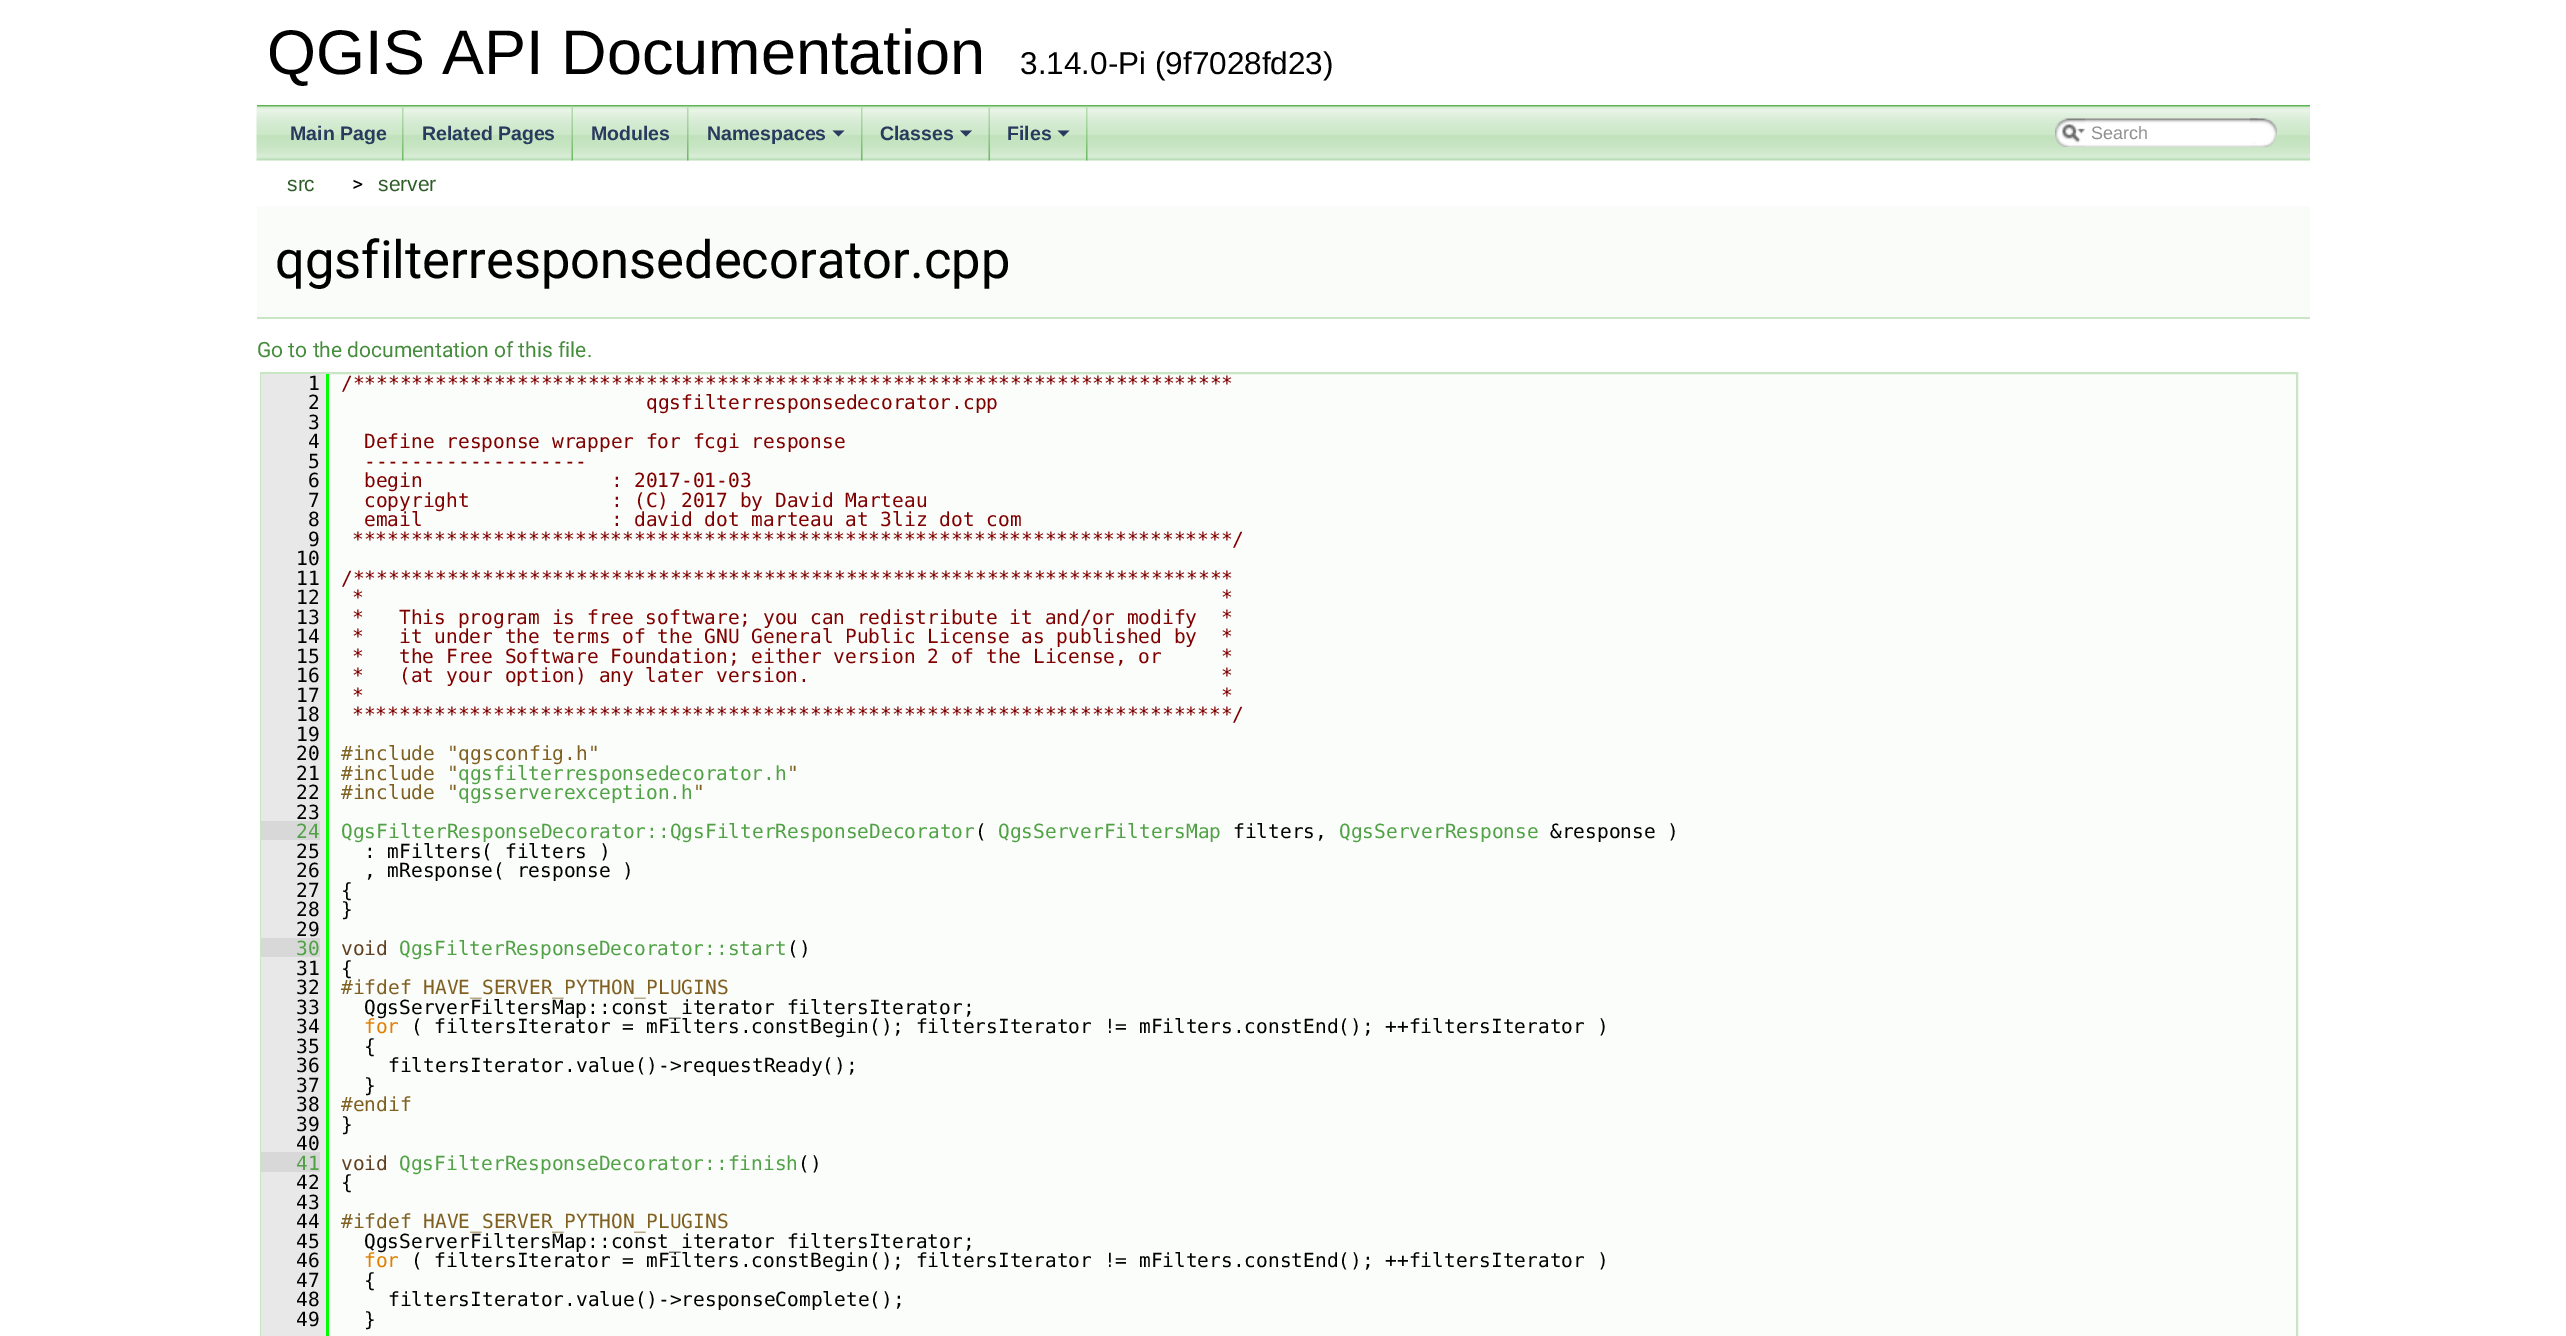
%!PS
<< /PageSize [2566 1336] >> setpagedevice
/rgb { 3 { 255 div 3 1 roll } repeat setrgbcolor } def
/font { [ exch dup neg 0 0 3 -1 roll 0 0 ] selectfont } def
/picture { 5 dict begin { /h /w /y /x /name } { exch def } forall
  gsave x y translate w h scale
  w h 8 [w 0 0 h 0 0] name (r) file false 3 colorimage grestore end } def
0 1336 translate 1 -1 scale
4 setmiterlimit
255 255 255 rgb
0 0 2566 1336 rectfill
95 180 83 rgb
257 105 2053 2 rectfill
(img/1.rgb) 256 106 2054 55 picture
(img/2.rgb) 402 106 2 55 picture
(img/3.rgb) 571 106 2 55 picture
(img/2.rgb) 687 106 2 55 picture
(img/2.rgb) 861 106 2 55 picture
40 58 93 rgb
832.5 130.5 moveto 844.5 130.5 lineto 838.5 136.5 lineto closepath fill
(img/3.rgb) 988 106 2 55 picture
960 130.5 moveto 972 130.5 lineto 966 136.5 lineto closepath fill
(img/2.rgb) 1086 106 2 55 picture
1057.5 130.5 moveto 1069.5 130.5 lineto 1063.5 136.5 lineto closepath fill
(img/4.rgb) 2055 118 30 29 picture
(img/5.rgb) 2062 124 23 19 picture
(img/6.rgb) 2085 118 173 29 picture
(img/7.rgb) 2250 118 27 29 picture
[
  [257 206 2053 111 249 252 249]
  [257 317 2053 2 200 229 196]
  [329 374 1967 962 251 253 251]
] { aload pop rgb rectfill } forall
200 229 196 rgb
2 setlinewidth
261 373 2036 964 rectstroke
[
  [261 374 65 447 232 232 232]
  [326 374 3 957 0 255 0]
  [320 821 6 19 232 232 232]
  [261 821 59 19 216 216 216]
  [261 840 65 98 232 232 232]
  [320 938 6 19 232 232 232]
  [261 938 59 19 216 216 216]
  [261 957 65 195 232 232 232]
  [320 1152 6 20 232 232 232]
  [261 1152 59 20 216 216 216]
  [261 1172 65 156 232 232 232]
  [261 1328 68 8 232 232 232]
  [326 1328 3 8 0 255 0]
] { aload pop rgb rectfill } forall
/LiberationSans-Regular 63 font
0 0 0 rgb
267 74 moveto (QGIS API Documentation) show
/LiberationSans-Regular 31.5 font
1020 74 moveto (3.14.0-Pi \(9f7028fd23\)) show
/LiberationSans-Bold 19.5 font
40 58 93 rgb
[
  [(Main Page) 290 140]
  [(Related Pages) 422 140]
  [(Modules) 591 140]
  [(Namespaces) 707 140]
  [(Classes) 880 140]
  [(Files) 1007 140]
] { aload pop moveto show } forall
/LiberationSans-Regular 18 font
144 144 144 rgb
2091 139 moveto (Search) show
/LiberationSans-Regular 21 font
46 93 40 rgb
287 191 moveto (src) show
/Roboto-Regular 21 font
0 0 0 rgb
352 191 moveto (>) show
/LiberationSans-Regular 21 font
46 93 40 rgb
378 191 moveto (server) show
/Roboto-Regular 52.5 font
0 0 0 rgb
275 278 moveto (qgsfilterresponsedecorator.cpp) show
/Roboto-Regular 21 font
70 140 61 rgb
257 357 moveto (Go to the documentation of this file.) show
/DejaVuSansMono-Regular 19.5 font
0 0 0 rgb
308 390 moveto (1) show
128 0 0 rgb
341 390 moveto (/***************************************************************************) show
0 0 0 rgb
308 409 moveto (2) show
128 0 0 rgb
646 409 moveto (qgsfilterresponsedecorator.cpp) show
0 0 0 rgb
308 429 moveto (3) show
308 448 moveto (4) show
128 0 0 rgb
364 448 moveto (Define response wrapper for fcgi response) show
0 0 0 rgb
308 468 moveto (5) show
128 0 0 rgb
364 468 moveto (-------------------) show
0 0 0 rgb
308 487 moveto (6) show
128 0 0 rgb
364 487 moveto (begin                : 2017-01-03) show
0 0 0 rgb
308 507 moveto (7) show
128 0 0 rgb
364 507 moveto (copyright            : \(C\) 2017 by David Marteau) show
0 0 0 rgb
308 526 moveto (8) show
128 0 0 rgb
364 526 moveto (email                : david dot marteau at 3liz dot com) show
0 0 0 rgb
308 546 moveto (9) show
128 0 0 rgb
352 546 moveto (***************************************************************************/) show
0 0 0 rgb
296 565 moveto (10) show
296 585 moveto (11) show
128 0 0 rgb
341 585 moveto (/***************************************************************************) show
0 0 0 rgb
296 604 moveto (12) show
128 0 0 rgb
352 604 moveto (*                                                                         *) show
0 0 0 rgb
296 624 moveto (13) show
128 0 0 rgb
352 624 moveto (*   This program is free software; you can redistribute it and/or modify  *) show
0 0 0 rgb
296 643 moveto (14) show
128 0 0 rgb
352 643 moveto (*   it under the terms of the GNU General Public License as published by  *) show
0 0 0 rgb
296 663 moveto (15) show
128 0 0 rgb
352 663 moveto (*   the Free Software Foundation; either version 2 of the License, or     *) show
0 0 0 rgb
296 682 moveto (16) show
128 0 0 rgb
352 682 moveto (*   \(at your option\) any later version.                                   *) show
0 0 0 rgb
296 702 moveto (17) show
128 0 0 rgb
352 702 moveto (*                                                                         *) show
0 0 0 rgb
296 721 moveto (18) show
128 0 0 rgb
352 721 moveto (***************************************************************************/) show
0 0 0 rgb
296 741 moveto (19) show
296 760 moveto (20) show
128 96 32 rgb
341 760 moveto (#include "qgsconfig.h") show
0 0 0 rgb
296 780 moveto (21) show
128 96 32 rgb
341 780 moveto (#include ") show
81 162 70 rgb
458 780 moveto (qgsfilterresponsedecorator.h) show
128 96 32 rgb
787 780 moveto (") show
0 0 0 rgb
296 799 moveto (22) show
128 96 32 rgb
341 799 moveto (#include ") show
81 162 70 rgb
458 799 moveto (qgsserverexception.h) show
128 96 32 rgb
693 799 moveto (") show
0 0 0 rgb
296 819 moveto (23) show
81 162 70 rgb
296 838 moveto (24) show
341 838 moveto (QgsFilterResponseDecorator::QgsFilterResponseDecorator) show
0 0 0 rgb
975 838 moveto (\() show
81 162 70 rgb
998 838 moveto (QgsServerFiltersMap) show
0 0 0 rgb
1233 838 moveto (filters,) show
81 162 70 rgb
1339 838 moveto (QgsServerResponse) show
0 0 0 rgb
[
  [(&response \)) 1550 838]
  [(25) 296 858]
  [(: mFilters\( filters \)) 364 858]
  [(26) 296 877]
  [(, mResponse\( response \)) 364 877]
  [(27) 296 897]
  [({) 341 897]
  [(28) 296 916]
  [(}) 341 916]
  [(29) 296 936]
] { aload pop moveto show } forall
81 162 70 rgb
296 955 moveto (30) show
96 64 32 rgb
341 955 moveto (void) show
81 162 70 rgb
399 955 moveto (QgsFilterResponseDecorator::start) show
0 0 0 rgb
[
  [(\(\)) 787 955]
  [(31) 296 975]
  [({) 341 975]
  [(32) 296 994]
] { aload pop moveto show } forall
128 96 32 rgb
341 994 moveto (#ifdef HAVE_SERVER_PYTHON_PLUGINS) show
0 0 0 rgb
[
  [(33) 296 1014]
  [(QgsServerFiltersMap::const_iterator filtersIterator;) 364 1014]
  [(34) 296 1033]
] { aload pop moveto show } forall
224 128 0 rgb
364 1033 moveto (for) show
0 0 0 rgb
[
  [(\( filtersIterator = mFilters.constBegin\(\); filtersIterator != mFilters.constEnd\(\); ++filtersIterator \)) 411 1033]
  [(35) 296 1053]
  [({) 364 1053]
  [(36) 296 1072]
  [(filtersIterator.value\(\)->requestReady\(\);) 388 1072]
  [(37) 296 1092]
  [(}) 364 1092]
  [(38) 296 1111]
] { aload pop moveto show } forall
128 96 32 rgb
341 1111 moveto (#endif) show
0 0 0 rgb
[
  [(39) 296 1131]
  [(}) 341 1131]
  [(40) 296 1150]
] { aload pop moveto show } forall
81 162 70 rgb
296 1170 moveto (41) show
96 64 32 rgb
341 1170 moveto (void) show
81 162 70 rgb
399 1170 moveto (QgsFilterResponseDecorator::finish) show
0 0 0 rgb
[
  [(\(\)) 798 1170]
  [(42) 296 1189]
  [({) 341 1189]
  [(43) 296 1209]
  [(44) 296 1228]
] { aload pop moveto show } forall
128 96 32 rgb
341 1228 moveto (#ifdef HAVE_SERVER_PYTHON_PLUGINS) show
0 0 0 rgb
[
  [(45) 296 1248]
  [(QgsServerFiltersMap::const_iterator filtersIterator;) 364 1248]
  [(46) 296 1267]
] { aload pop moveto show } forall
224 128 0 rgb
364 1267 moveto (for) show
0 0 0 rgb
[
  [(\( filtersIterator = mFilters.constBegin\(\); filtersIterator != mFilters.constEnd\(\); ++filtersIterator \)) 411 1267]
  [(47) 296 1287]
  [({) 364 1287]
  [(48) 296 1306]
  [(filtersIterator.value\(\)->responseComplete\(\);) 388 1306]
  [(49) 296 1326]
  [(}) 364 1326]
] { aload pop moveto show } forall
showpage
